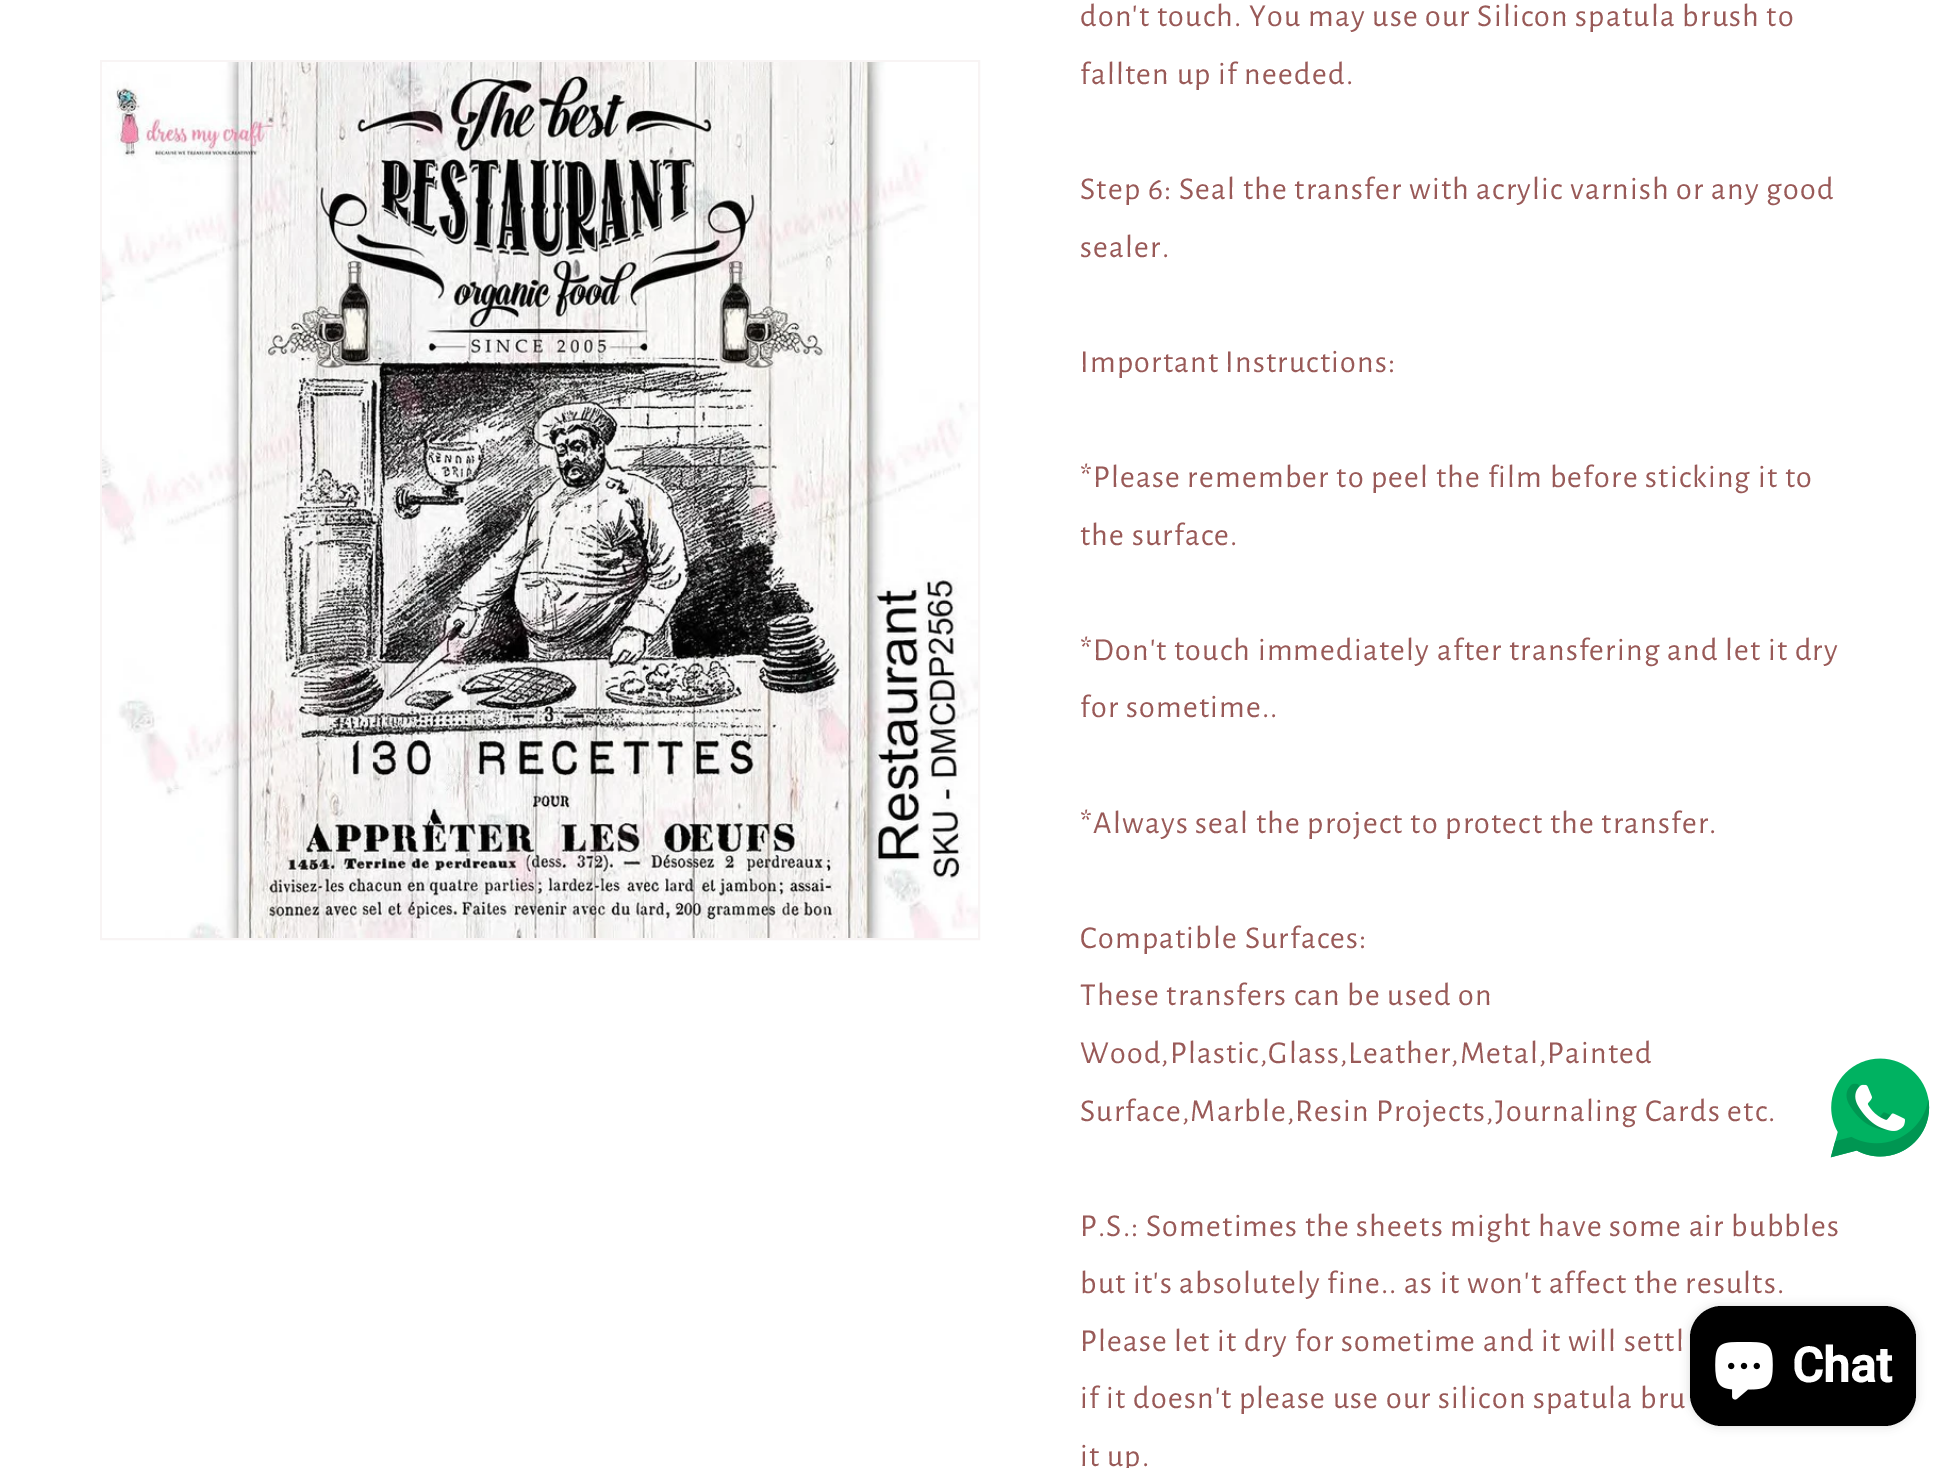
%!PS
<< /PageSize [1960 1468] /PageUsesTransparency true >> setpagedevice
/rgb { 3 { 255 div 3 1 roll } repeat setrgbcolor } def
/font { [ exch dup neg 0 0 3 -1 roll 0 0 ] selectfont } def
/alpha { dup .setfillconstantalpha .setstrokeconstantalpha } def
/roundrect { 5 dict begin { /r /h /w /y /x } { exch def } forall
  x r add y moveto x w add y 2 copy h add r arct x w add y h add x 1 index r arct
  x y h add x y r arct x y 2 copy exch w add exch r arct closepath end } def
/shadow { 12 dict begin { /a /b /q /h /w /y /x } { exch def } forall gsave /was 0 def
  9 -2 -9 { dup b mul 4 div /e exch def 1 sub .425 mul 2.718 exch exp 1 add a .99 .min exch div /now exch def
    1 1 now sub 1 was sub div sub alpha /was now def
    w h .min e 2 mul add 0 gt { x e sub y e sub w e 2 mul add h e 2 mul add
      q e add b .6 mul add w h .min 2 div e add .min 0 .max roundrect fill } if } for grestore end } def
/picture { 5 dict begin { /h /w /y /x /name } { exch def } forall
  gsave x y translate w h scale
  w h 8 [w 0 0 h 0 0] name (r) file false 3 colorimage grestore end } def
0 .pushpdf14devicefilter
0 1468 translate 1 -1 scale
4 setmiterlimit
255 255 255 rgb
0 0 1960 1468 rectfill
248 244 244 rgb
2 setlinewidth
101 61 878 878 rectstroke
(img/1.rgb) 102 62 876 876 picture
(img/2.rgb) 1830 1058 100 100 picture
0 0 0 rgb
1690 1306 226 120 32 5 0.15 shadow
1690 1306 226 120 32 roundrect fill
(img/3.rgb) 1715 1342 58 58 picture
/AlegreyaSans-Regular 32 font
153 90 88 rgb
1080 26 moveto 1.2 0 (don't touch. You may use our Silicon spatula brush to) ashow
1080 84 moveto 1.2 0 (fallten up if needed.) ashow
1080 199 moveto 1.2 0 (Step 6: Seal the transfer with acrylic varnish or any good) ashow
1080 257 moveto 1.2 0 (sealer.) ashow
1080 372 moveto 1.2 0 (Important Instructions:) ashow
1080 487 moveto 1.2 0 (*Please remember to peel the film before sticking it to) ashow
1080 545 moveto 1.2 0 (the surface.) ashow
1080 660 moveto 1.2 0 (*Don't touch immediately after transfering and let it dry) ashow
1080 717 moveto 1.2 0 (for sometime..) ashow
1080 833 moveto 1.2 0 (*Always seal the project to protect the transfer.) ashow
1080 948 moveto 1.2 0 (Compatible Surfaces:) ashow
1080 1005 moveto 1.2 0 (These transfers can be used on) ashow
1080 1063 moveto 1.2 0 (Wood,Plastic,Glass,Leather,Metal,Painted) ashow
1080 1121 moveto 1.2 0 (Surface,Marble,Resin Projects,Journaling Cards etc.) ashow
1080 1236 moveto 1.2 0 (P.S.: Sometimes the sheets might have some air bubbles) ashow
1080 1293 moveto 1.2 0 (but it's absolutely fine.. as it won't affect the results.) ashow
1080 1351 moveto 1.2 0 (Please let it dry for sometime and it will settl) ashow
1080 1408 moveto 1.2 0 (if it doesn't please use our silicon spatula bru) ashow
1080 1466 moveto 1.2 0 (it up.) ashow
/Roboto-Bold 48 font
255 255 255 rgb
1792 1382 moveto (Chat) show
.poppdf14devicefilter showpage
